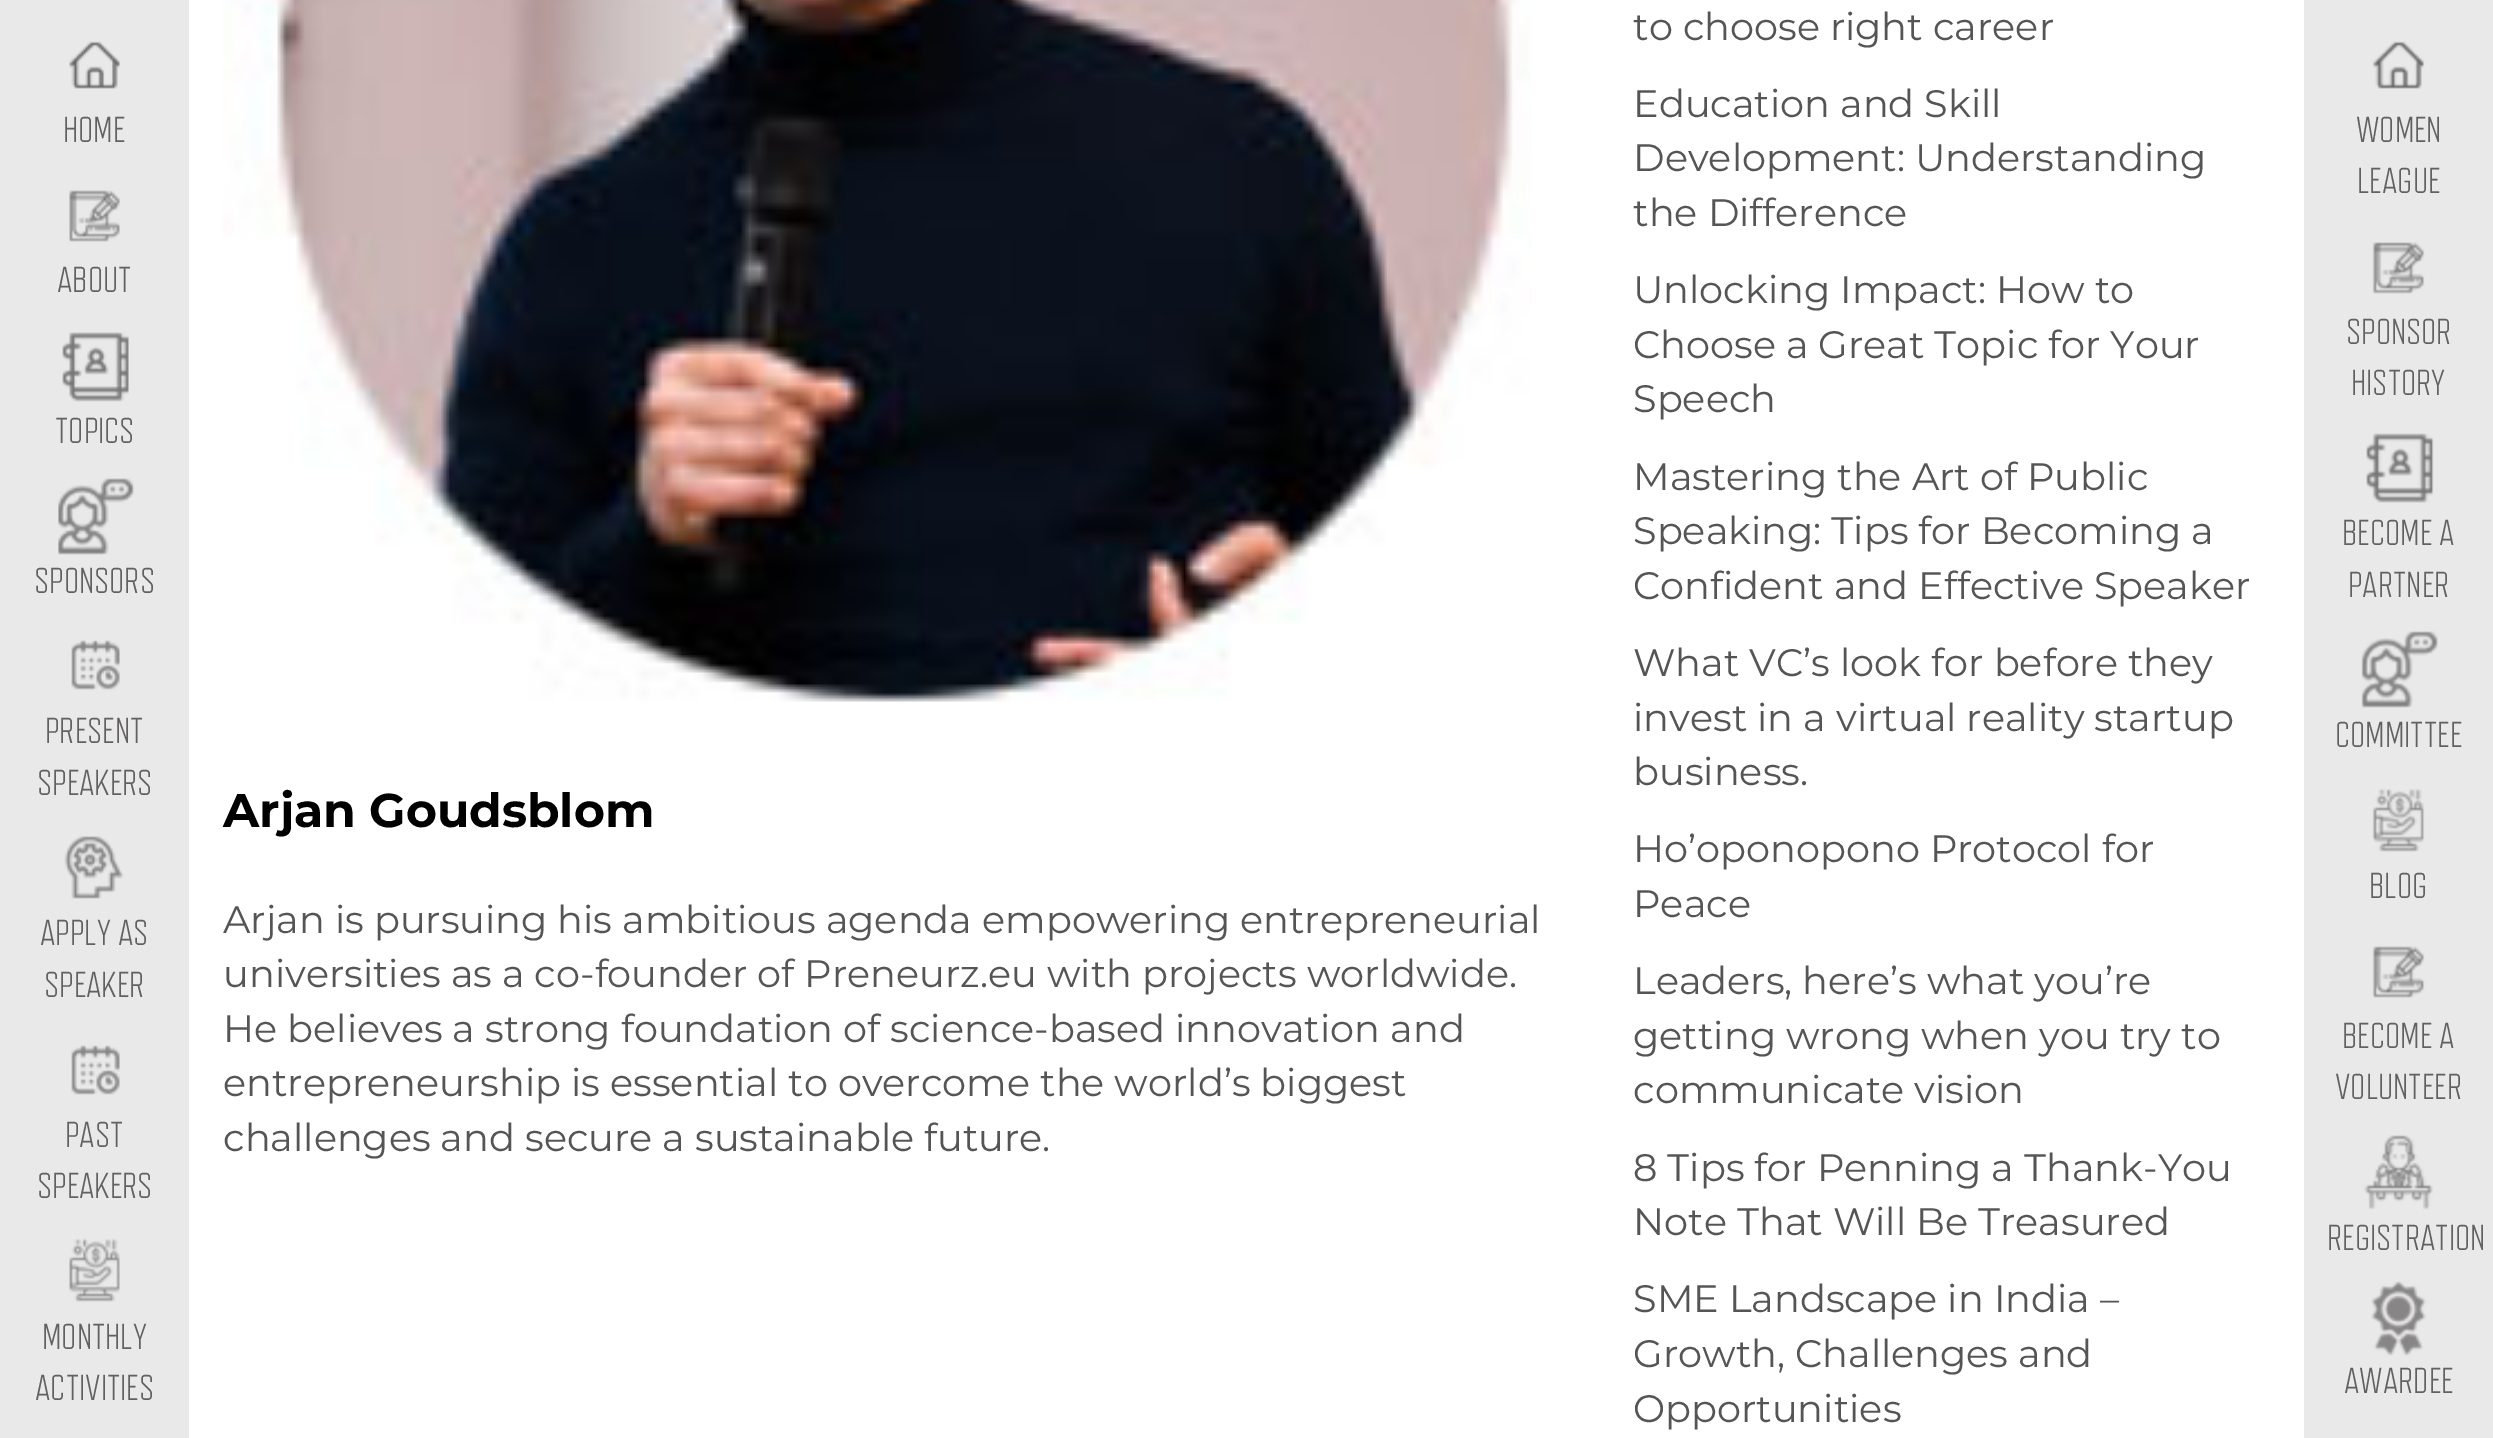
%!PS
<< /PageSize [2493 1438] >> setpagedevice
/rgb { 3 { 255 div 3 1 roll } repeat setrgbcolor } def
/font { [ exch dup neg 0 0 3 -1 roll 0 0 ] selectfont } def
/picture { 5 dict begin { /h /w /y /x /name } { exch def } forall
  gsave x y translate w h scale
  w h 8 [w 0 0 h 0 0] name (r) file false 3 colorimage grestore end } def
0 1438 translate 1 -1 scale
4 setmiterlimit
255 255 255 rgb
0 0 2493 1438 rectfill
233 233 233 rgb
0 0 189 1438 rectfill
(img/1.rgb) 69 41 51 48 picture
(img/2.rgb) 69 190 51 52 picture
(img/3.rgb) 62 332 67 70 picture
(img/4.rgb) 58 478 76 77 picture
(img/5.rgb) 71 640 49 50 picture
(img/6.rgb) 64 836 60 63 picture
(img/5.rgb) 71 1045 49 50 picture
(img/7.rgb) 69 1238 51 64 picture
(img/8.rgb) 223 0 1309 702 picture
2304 0 189 1438 rectfill
(img/9.rgb) 2372 41 53 48 picture
(img/10.rgb) 2372 242 53 52 picture
(img/11.rgb) 2366 433 68 70 picture
(img/12.rgb) 2361 631 77 77 picture
(img/13.rgb) 2372 788 53 64 picture
(img/14.rgb) 2372 946 53 52 picture
(img/15.rgb) 2364 1135 69 75 picture
(img/16.rgb) 2371 1281 55 75 picture
/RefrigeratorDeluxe-Light 36 font
98 96 96 rgb
[
  [(HOME) 63 142]
  [(ABOUT) 57 292]
  [(TOPICS) 55 443]
  [(SPONSORS) 34 593]
  [(PRESENT) 45 743]
  [(SPEAKERS) 37 795]
  [(APPLY AS) 40 945]
  [(SPEAKER) 44 997]
  [(PAST) 65 1147]
  [(SPEAKERS) 37 1198]
  [(MONTHLY) 42 1349]
  [(ACTIVITIES) 35 1400]
] { aload pop moveto show } forall
/Montserrat-Bold 47.25 font
0 0 0 rgb
223 827 moveto (Arjan Goudsblom) show
/Montserrat-Regular 38.25 font
85 85 85 rgb
[
  [(Arjan is pursuing his ambitious agenda empowering entrepreneurial) 223 933]
  [(universities as a co-founder of Preneurz.eu with projects worldwide.) 223 987]
  [(He believes a strong foundation of science-based innovation and) 223 1042]
  [(entrepreneurship is essential to overcome the world’s biggest) 223 1096]
  [(challenges and secure a sustainable future.) 223 1151]
  [(to choose right career) 1633 40]
  [(Education and Skill) 1633 117]
  [(Development: Understanding) 1633 171]
  [(the Difference) 1633 226]
  [(Unlocking Impact: How to) 1633 303]
  [(Choose a Great Topic for Your) 1633 358]
  [(Speech) 1633 412]
  [(Mastering the Art of Public) 1633 490]
  [(Speaking: Tips for Becoming a) 1633 544]
  [(Confident and Effective Speaker) 1633 599]
  [(What VC’s look for before they) 1633 676]
  [(invest in a virtual reality startup) 1633 731]
  [(business.) 1633 785]
  [(Ho’oponopono Protocol for) 1633 862]
  [(Peace) 1633 917]
  [(Leaders, here’s what you’re) 1633 994]
  [(getting wrong when you try to) 1633 1049]
  [(communicate vision) 1633 1103]
  [(8 Tips for Penning a Thank-You) 1633 1181]
  [(Note That Will Be Treasured) 1633 1235]
  [(SME Landscape in India –) 1633 1312]
  [(Growth, Challenges and) 1633 1367]
  [(Opportunities) 1633 1422]
] { aload pop moveto show } forall
/RefrigeratorDeluxe-Light 36 font
98 96 96 rgb
[
  [(WOMEN) 2356 142]
  [(LEAGUE) 2357 193]
  [(SPONSOR) 2346 344]
  [(HISTORY) 2351 395]
  [(BECOME A) 2342 545]
  [(PARTNER) 2348 597]
  [(COMMITTEE) 2335 747]
  [(BLOG) 2369 898]
  [(BECOME A) 2342 1048]
  [(VOLUNTEER) 2335 1099]
  [(REGISTRATION) 2327 1250]
  [(AWARDEE) 2344 1393]
] { aload pop moveto show } forall
showpage
